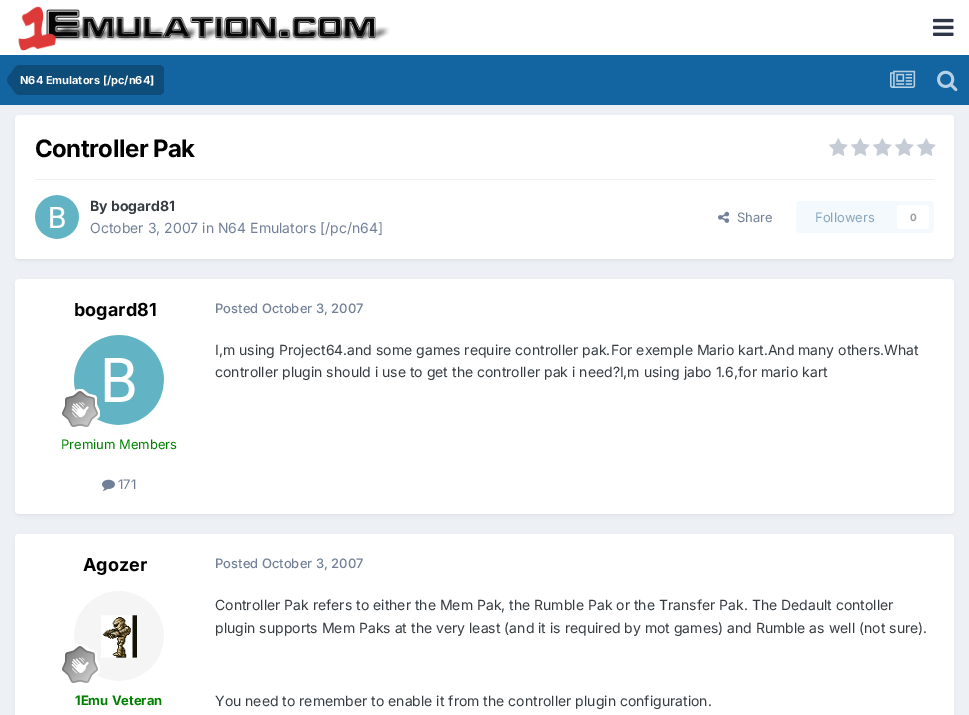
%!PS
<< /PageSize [969 715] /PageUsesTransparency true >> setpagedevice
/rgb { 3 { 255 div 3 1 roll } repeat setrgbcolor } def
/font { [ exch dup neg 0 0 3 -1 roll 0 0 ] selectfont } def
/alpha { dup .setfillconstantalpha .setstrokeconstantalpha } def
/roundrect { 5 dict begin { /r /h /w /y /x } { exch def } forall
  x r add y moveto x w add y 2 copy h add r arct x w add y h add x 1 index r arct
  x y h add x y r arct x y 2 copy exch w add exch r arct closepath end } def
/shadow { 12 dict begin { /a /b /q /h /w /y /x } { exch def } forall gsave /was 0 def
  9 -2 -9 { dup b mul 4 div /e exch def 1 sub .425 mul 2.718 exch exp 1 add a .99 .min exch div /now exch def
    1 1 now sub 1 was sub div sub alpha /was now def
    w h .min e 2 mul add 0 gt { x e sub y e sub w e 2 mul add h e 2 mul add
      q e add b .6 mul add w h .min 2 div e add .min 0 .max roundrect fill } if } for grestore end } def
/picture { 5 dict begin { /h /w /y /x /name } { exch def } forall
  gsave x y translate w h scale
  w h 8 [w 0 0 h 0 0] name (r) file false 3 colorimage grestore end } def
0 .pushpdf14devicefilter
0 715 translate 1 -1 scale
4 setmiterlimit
237 240 244 rgb
0 0 969 715 rectfill
255 255 255 rgb
0 0 969 55 rectfill
(img/1.rgb) 18 6 372 45 picture
(img/2.rgb) 933 18 21 18 picture
18 101 161 rgb
0 55 969 50 rectfill
14 76 121 rgb
20 65 moveto 159 65 lineto 162 65 164 67 164 70 curveto 164 90 lineto 164 93 162 95 159 95 curveto 20 95 lineto closepath fill
20 80 moveto 20 95 lineto 15.5 95 13.5 90.5 11 87 curveto 9.5 85 7 83 7 80 curveto closepath 20 80 moveto 7 80 lineto 7 77 9.5 75 11 73 curveto 13.5 69.5 15.5 65 20 65 curveto closepath fill
(img/3.rgb) 890 70 26 18 picture
(img/4.rgb) 937 70 21 22 picture
45 55 72 rgb
16 118 937 142 3 2 0.1 shadow
255 255 255 rgb
15 115 939 144 4 roundrect fill
(img/5.rgb) 829 138 19 18 picture
(img/5.rgb) 851 138 19 18 picture
(img/5.rgb) 873 138 19 18 picture
(img/5.rgb) 895 138 19 18 picture
(img/5.rgb) 917 138 19 18 picture
239 239 240 rgb
35 179 899 1 rectfill
(img/6.rgb) 35 195 44 44 picture
(img/7.rgb) 718 211 12 12 picture
244 249 253 rgb
796 201 138 32 4 roundrect fill
255 255 255 rgb
897 205 32 24 4 roundrect fill
45 55 72 rgb
16 282 937 233 3 2 0.1 shadow
255 255 255 rgb
15 279 939 235 4 roundrect fill
(img/8.rgb) 74 335 90 90 picture
(img/9.rgb) 62 389 38 38 picture
(img/10.rgb) 102 479 13 12 picture
45 55 72 rgb
16 537 937 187 3 2 0.1 shadow
255 255 255 rgb
15 534 939 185 4 roundrect fill
(img/11.rgb) 74 591 90 90 picture
(img/12.rgb) 62 644 38 39 picture
/Inter-Bold 11 font
20 84 moveto (N64 Emulators [/pc/n64]) show
/Inter-Bold 24 font
0 0 0 rgb
35 157 moveto -0.5 0 (Controller Pak) ashow
/Inter-Bold 14 font
53 60 65 rgb
90 211 moveto (By bogard81) show
/Inter-Regular 14 font
113 128 150 rgb
90 233 moveto (October 3, 2007 in N64 Emulators [/pc/n64]) show
/Inter-Regular 13 font
737 222 moveto (Share) show
135 166 188 rgb
815 222 moveto (Followers) show
/Inter-Bold 10 font
154 158 160 rgb
910 221 moveto (0) show
/Inter-Bold 18 font
0 0 0 rgb
74 316 moveto (bogard81) show
/Inter-Regular 13 font
0 128 0 rgb
61 449 moveto (Premium Members) show
113 128 150 rgb
118 489 moveto (171) show
/Inter-Medium 13 font
215 313 moveto (Posted October 3, 2007) show
/Inter-Regular 14 font
53 60 65 rgb
215 355 moveto (I,m using Project64.and some games require controller pak.For exemple Mario kart.And many others.What) show
215 377 moveto (controller plugin should i use to get the controller pak i need?I,m using jabo 1.6,for mario kart) show
/Inter-Bold 18 font
0 0 0 rgb
83 571 moveto (Agozer) show
/Inter-Bold 13 font
0 128 0 rgb
75 705 moveto (1Emu Veteran) show
/Inter-Medium 13 font
113 128 150 rgb
215 568 moveto (Posted October 3, 2007) show
/Inter-Regular 14 font
53 60 65 rgb
[
  [(Controller Pak refers to either the Mem Pak, the Rumble Pak or the Transfer Pak. The Dedault contoller) 215 610]
  [(plugin supports Mem Paks at the very least \(and it is required by mot games\) and Rumble as well \(not sure\).) 215 633]
  [(You need to remember to enable it from the controller plugin configuration.) 215 706]
] { aload pop moveto show } forall
.poppdf14devicefilter showpage
